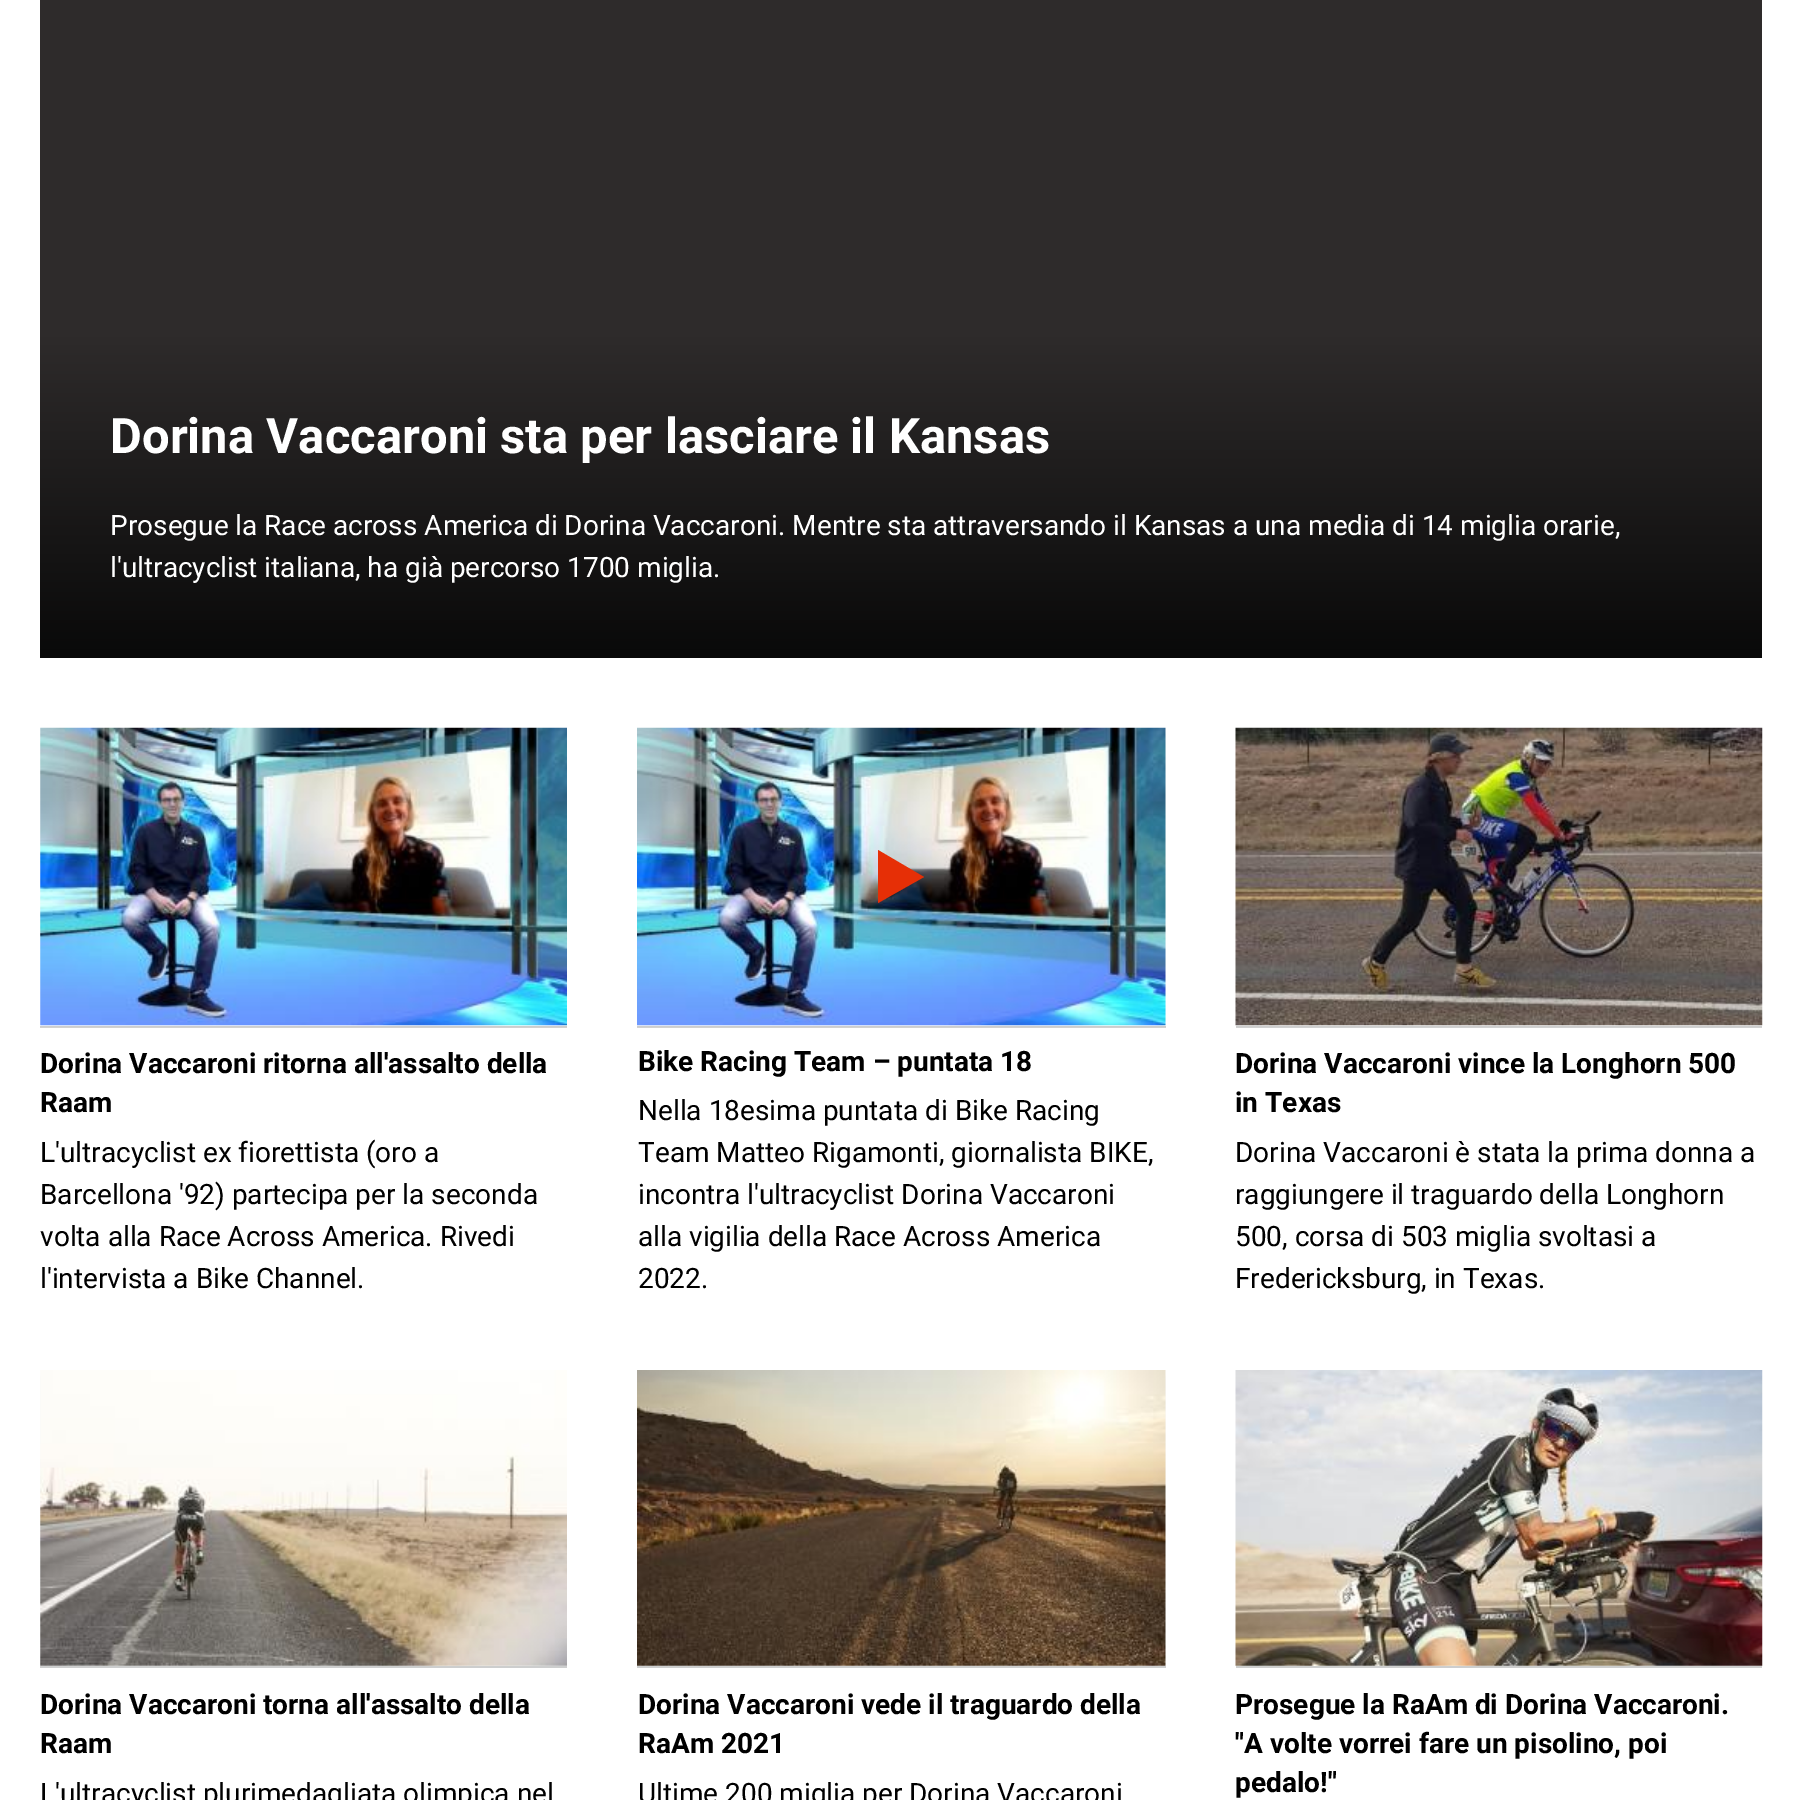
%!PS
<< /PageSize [1802 1800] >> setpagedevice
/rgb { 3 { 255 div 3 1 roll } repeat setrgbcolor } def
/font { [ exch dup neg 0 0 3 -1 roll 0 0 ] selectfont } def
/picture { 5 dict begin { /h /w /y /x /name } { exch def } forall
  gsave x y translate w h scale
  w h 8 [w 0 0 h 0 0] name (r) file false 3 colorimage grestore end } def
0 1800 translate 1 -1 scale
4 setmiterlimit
255 255 255 rgb
0 0 1802 1800 rectfill
[
  [1236 1027 526 1 209 209 209]
  [637 1027 529 1 209 209 209]
  [40 1027 527 1 209 209 209]
  [40 0 1722 336 46 43 43]
] { aload pop rgb rectfill } forall
gsave 40 336 moveto 1762 336 lineto 1762 658 lineto 40 658 lineto closepath clip newpath
<< /ShadingType 2 /ColorSpace /DeviceRGB /Coords [901 658 901 336] /Extend [true true] /Function << /FunctionType 2 /Domain [0 1] /C0 [0.035 0.035 0.035] /C1 [0.18 0.169 0.169] /N 1 >> >> shfill grestore
249 250 250 rgb
49 728 moveto 558 728 lineto 563 728 567 732 567 737 curveto 567 1027 lineto 40 1027 lineto 40 737 lineto 40 732 44 728 49 728 curveto closepath fill
204 205 205 rgb
40 1026 527 1 rectfill
(img/1.rgb) 40 727 527 299 picture
249 250 250 rgb
646 728 moveto 1157 728 lineto 1162 728 1166 732 1166 737 curveto 1166 1027 lineto 637 1027 lineto 637 737 lineto 637 732 641 728 646 728 curveto closepath fill
204 205 205 rgb
637 1026 529 1 rectfill
(img/2.rgb) 637 727 529 299 picture
230 47 6 rgb
878 903 moveto 924 877 lineto 878 850 lineto closepath fill
249 250 250 rgb
1236 1025 526 1 rectfill
204 205 205 rgb
1236 1026 526 1 rectfill
(img/3.rgb) 1235 727 528 299 picture
249 250 250 rgb
49 1370 moveto 558 1370 lineto 563 1370 567 1374 567 1379 curveto 567 1668 lineto 40 1668 lineto 40 1379 lineto 40 1374 44 1370 49 1370 curveto closepath fill
205 206 206 rgb
40 1666 527 2 rectfill
(img/4.rgb) 40 1370 527 296 picture
249 250 250 rgb
646 1370 moveto 1157 1370 lineto 1162 1370 1166 1374 1166 1379 curveto 1166 1668 lineto 637 1668 lineto 637 1379 lineto 637 1374 641 1370 646 1370 curveto closepath fill
205 206 206 rgb
637 1666 529 2 rectfill
(img/5.rgb) 637 1370 529 296 picture
1236 1666 526 2 rectfill
(img/6.rgb) 1235 1370 528 296 picture
/Roboto-Bold 49 font
255 255 255 rgb
110 453 moveto (Dorina Vaccaroni sta per lasciare il Kansas) show
/Roboto-Regular 28 font
110 535 moveto (Prosegue la Race across America di Dorina Vaccaroni. Mentre sta attraversando il Kansas a una media di 14 miglia orarie,) show
110 577 moveto (l'ultracyclist italiana, ha già percorso 1700 miglia.) show
/Roboto-Bold 28 font
0 0 0 rgb
40 1073 moveto (Dorina Vaccaroni ritorna all'assalto della) show
40 1112 moveto (Raam) show
/Roboto-Regular 28 font
[
  [(L'ultracyclist ex fiorettista \(oro a) 40 1162]
  [(Barcellona '92\) partecipa per la seconda) 40 1204]
  [(volta alla Race Across America. Rivedi) 40 1246]
  [(l'intervista a Bike Channel.) 40 1288]
] { aload pop moveto show } forall
/Roboto-Bold 28 font
638 1071 moveto (Bike Racing Team – puntata 18) show
/Roboto-Regular 28 font
[
  [(Nella 18esima puntata di Bike Racing) 638 1120]
  [(Team Matteo Rigamonti, giornalista BIKE,) 638 1162]
  [(incontra l'ultracyclist Dorina Vaccaroni) 638 1204]
  [(alla vigilia della Race Across America) 638 1246]
  [(2022.) 638 1288]
] { aload pop moveto show } forall
/Roboto-Bold 28 font
1235 1073 moveto (Dorina Vaccaroni vince la Longhorn 500) show
1235 1112 moveto (in Texas) show
/Roboto-Regular 28 font
[
  [(Dorina Vaccaroni è stata la prima donna a) 1235 1162]
  [(raggiungere il traguardo della Longhorn) 1235 1204]
  [(500, corsa di 503 miglia svoltasi a) 1235 1246]
  [(Fredericksburg, in Texas.) 1235 1288]
] { aload pop moveto show } forall
/Roboto-Bold 28 font
40 1714 moveto (Dorina Vaccaroni torna all'assalto della) show
40 1753 moveto (Raam) show
/Roboto-Regular 28 font
40 1803 moveto (L'ultracyclist plurimedagliata olimpica nel) show
/Roboto-Bold 28 font
638 1714 moveto (Dorina Vaccaroni vede il traguardo della) show
638 1753 moveto (RaAm 2021) show
/Roboto-Regular 28 font
638 1803 moveto (Ultime 200 miglia per Dorina Vaccaroni) show
/Roboto-Bold 28 font
[
  [(Prosegue la RaAm di Dorina Vaccaroni.) 1235 1714]
  [("A volte vorrei fare un pisolino, poi) 1235 1753]
  [(pedalo!") 1235 1792]
] { aload pop moveto show } forall
showpage
